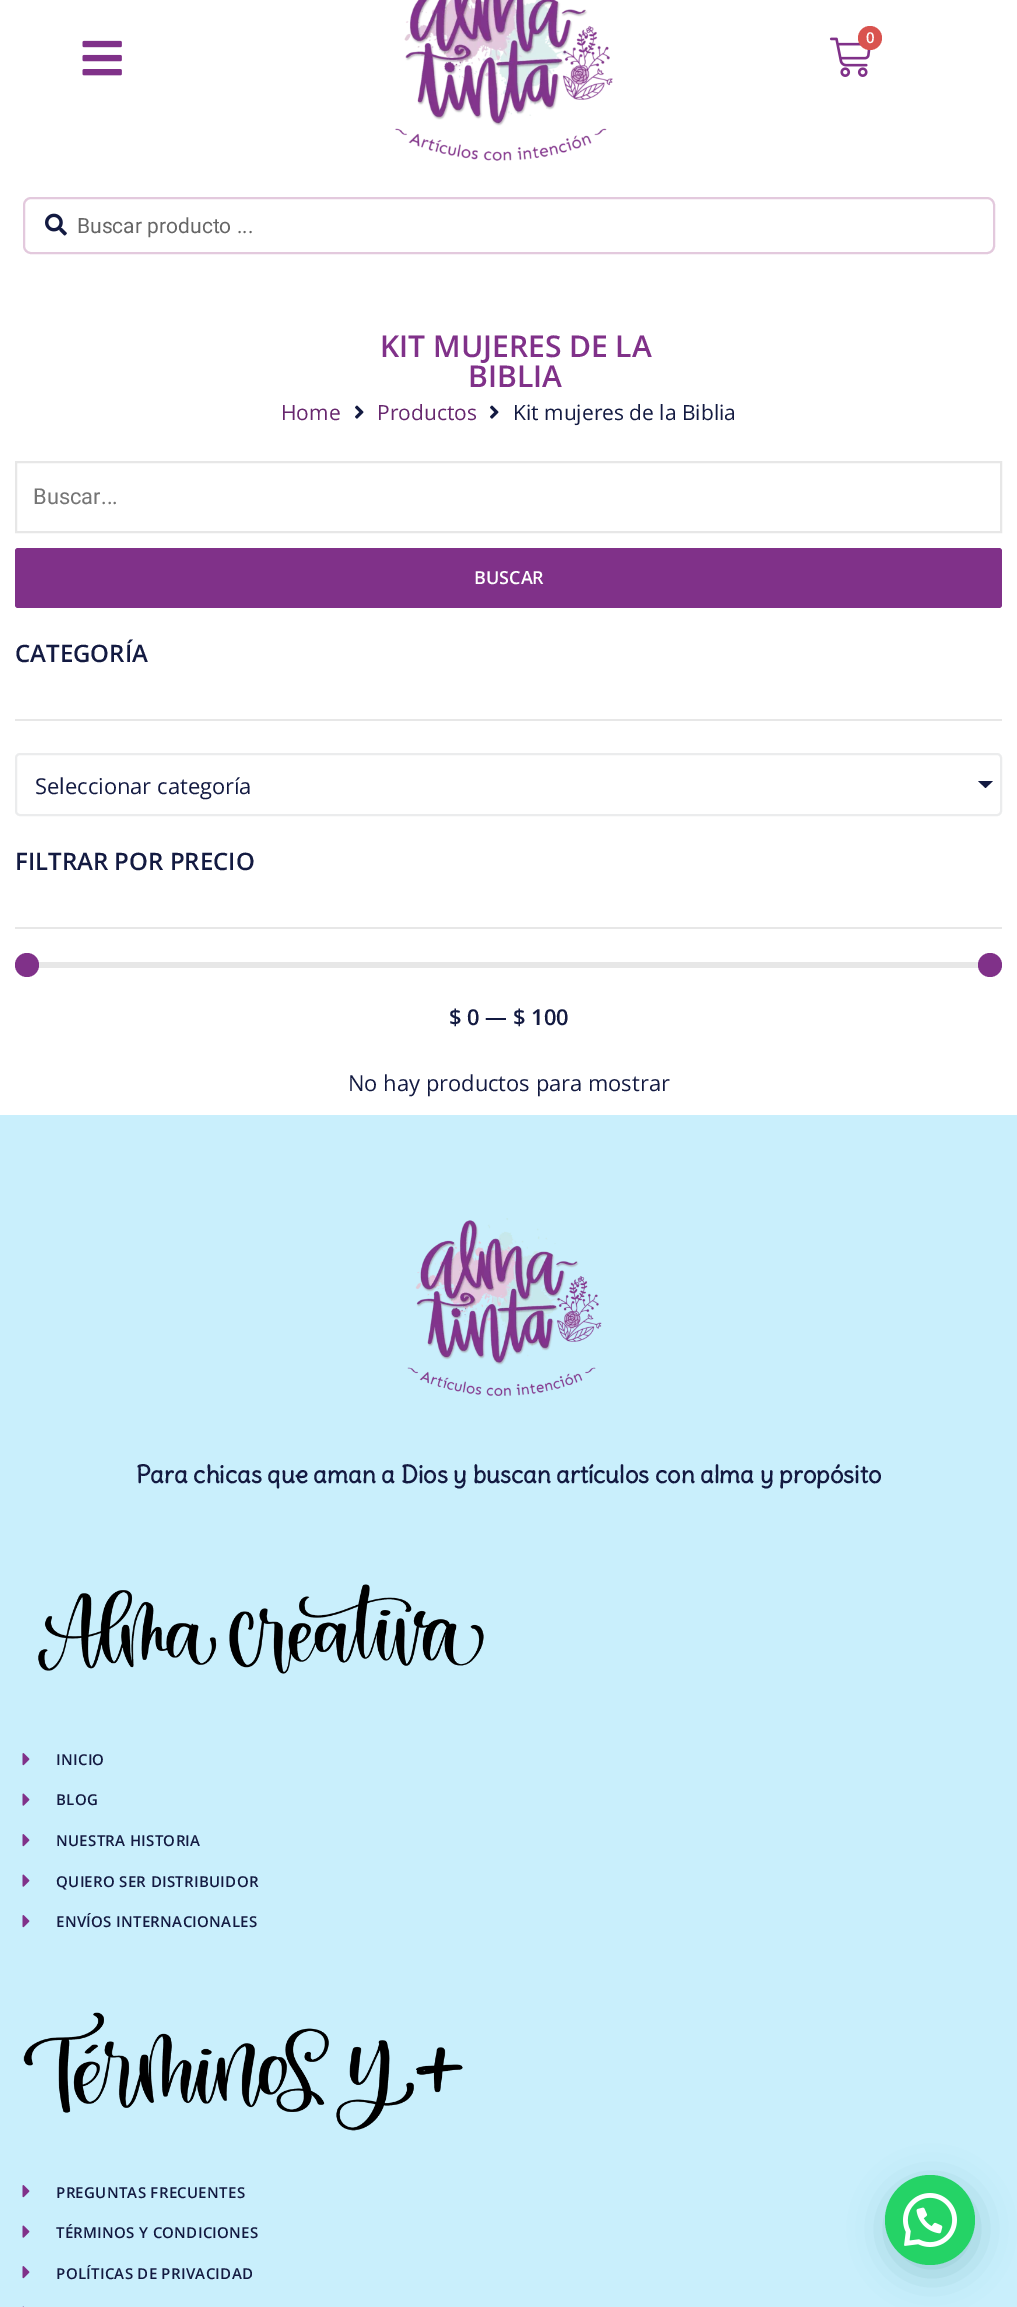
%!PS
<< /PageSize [1017 2307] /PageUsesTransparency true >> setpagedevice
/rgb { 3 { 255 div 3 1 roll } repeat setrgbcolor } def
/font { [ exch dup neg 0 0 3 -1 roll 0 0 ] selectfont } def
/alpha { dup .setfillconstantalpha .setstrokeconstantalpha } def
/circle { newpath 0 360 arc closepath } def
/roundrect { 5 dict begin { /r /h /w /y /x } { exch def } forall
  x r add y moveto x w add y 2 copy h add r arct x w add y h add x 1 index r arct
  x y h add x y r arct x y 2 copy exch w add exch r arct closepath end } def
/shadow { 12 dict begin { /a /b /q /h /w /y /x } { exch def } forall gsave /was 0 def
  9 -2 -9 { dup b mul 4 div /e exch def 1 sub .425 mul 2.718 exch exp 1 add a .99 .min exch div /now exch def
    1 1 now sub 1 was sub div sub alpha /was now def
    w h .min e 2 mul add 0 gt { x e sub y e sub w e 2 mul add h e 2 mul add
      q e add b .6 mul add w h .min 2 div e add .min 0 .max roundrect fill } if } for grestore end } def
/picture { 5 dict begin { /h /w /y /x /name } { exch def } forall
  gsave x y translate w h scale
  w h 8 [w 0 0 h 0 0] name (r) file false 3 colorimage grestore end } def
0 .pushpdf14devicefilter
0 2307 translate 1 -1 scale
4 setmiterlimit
255 255 255 rgb
0 0 1017 2307 rectfill
(img/1.rgb) 395 0 218 161 picture
(img/2.rgb) 829 37 42 40 picture
217 83 79 rgb
870 38 12 circle fill
(img/3.rgb) 82 40 40 36 picture
227 201 221 rgb
2 setlinewidth
24 198 970 55 7 roundrect stroke
(img/4.rgb) 45 213 22 23 picture
(img/5.rgb) 355 405 9 14 picture
(img/5.rgb) 490 405 9 14 picture
231 231 231 rgb
16 462 985 70 rectstroke
128 49 137 rgb
15 548 987 60 3 roundrect fill
231 231 231 rgb
15 719 987 2 rectfill
235 236 237 rgb
16 754 985 61 4 roundrect stroke
19 26 65 rgb
978 781 moveto 993 781 lineto 985.5 788 lineto closepath fill
231 231 231 rgb
15 927 987 2 rectfill
15 962 987 6 rectfill
128 49 137 rgb
27 965 12 circle fill
990 965 12 circle fill
201 239 252 rgb
0 1115 1017 1192 rectfill
(img/6.rgb) 407 1218 195 178 picture
(img/7.rgb) 38 1584 446 90 picture
(img/8.rgb) 22 1753 8 13 picture
(img/9.rgb) 22 1793 8 13 picture
(img/8.rgb) 22 1834 8 13 picture
(img/9.rgb) 22 1874 8 13 picture
(img/8.rgb) 22 1915 8 13 picture
(img/10.rgb) 23 2012 440 119 picture
(img/8.rgb) 22 2185 8 13 picture
(img/9.rgb) 22 2225 8 13 picture
(img/8.rgb) 22 2266 8 13 picture
(img/11.rgb) 22 2306 2 1 picture
7 94 84 rgb
887 2184 90 90 45 18 0.24 shadow
37 211 102 rgb
930 2220 45 circle fill
(img/12.rgb) 903 2193 54 54 picture
/OpenSans-SemiBold 15 font
255 255 255 rgb
866 43 moveto (0) show
/Roboto-Regular 21 font
102 102 102 rgb
77 233 moveto (Buscar producto ...) show
/OpenSans-SemiBold 30 font
128 49 137 rgb
380 357 moveto (KIT MUJERES DE LA) show
468 387 moveto (BIBLIA) show
/OpenSans-Regular 21 font
103 39 110 rgb
281 420 moveto (Home) show
377 420 moveto (Productos) show
19 26 65 rgb
513 420 moveto (Kit mujeres de la Biblia) show
/Roboto-Regular 21.9 font
117 117 117 rgb
33 504 moveto (Buscar...) show
/OpenSans-SemiBold 18 font
255 255 255 rgb
474 584 moveto (BUSCAR) show
/OpenSans-SemiBold 24 font
19 26 65 rgb
15 662 moveto (CATEGORÍA) show
/OpenSans-Regular 21.9 font
35 794 moveto (Seleccionar categoría) show
/OpenSans-SemiBold 24 font
15 870 moveto (FILTRAR POR PRECIO) show
/OpenSans-SemiBold 21.9 font
449 1025 moveto ($ 0 — $ 100) show
/OpenSans-Regular 21.9 font
348 1091 moveto (No hay productos para mostrar) show
/Delius-Bold 24 font
136 1483 moveto (Para chicas que aman a Dios y buscan artículos con alma y propósito) show
/OpenSans-SemiBold 15 font
56 1765 moveto 0.3 0 (INICIO) ashow
56 1805 moveto 0.3 0 (BLOG) ashow
56 1846 moveto 0.3 0 (NUESTRA HISTORIA) ashow
56 1887 moveto 0.3 0 (QUIERO SER DISTRIBUIDOR) ashow
56 1927 moveto 0.3 0 (ENVÍOS INTERNACIONALES) ashow
56 2198 moveto 0.3 0 (PREGUNTAS FRECUENTES) ashow
56 2238 moveto 0.3 0 (TÉRMINOS Y CONDICIONES) ashow
56 2279 moveto 0.3 0 (POLÍTICAS DE PRIVACIDAD) ashow
.poppdf14devicefilter showpage
